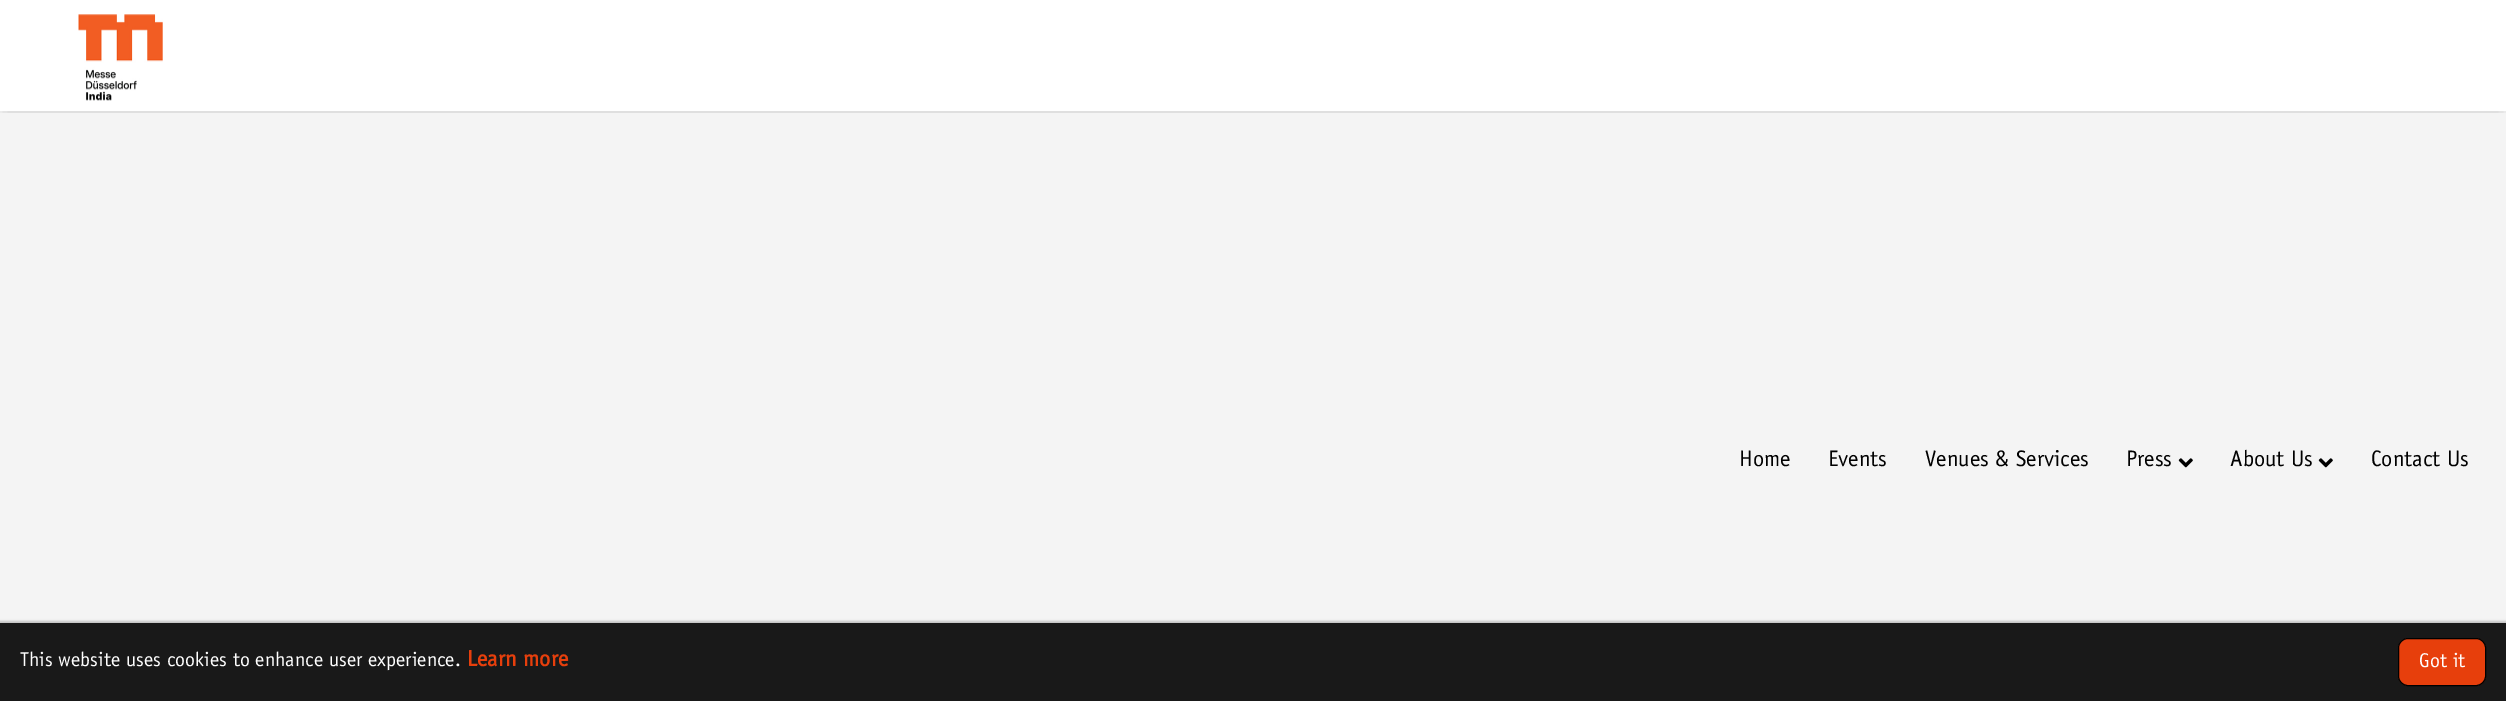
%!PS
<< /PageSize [2506 701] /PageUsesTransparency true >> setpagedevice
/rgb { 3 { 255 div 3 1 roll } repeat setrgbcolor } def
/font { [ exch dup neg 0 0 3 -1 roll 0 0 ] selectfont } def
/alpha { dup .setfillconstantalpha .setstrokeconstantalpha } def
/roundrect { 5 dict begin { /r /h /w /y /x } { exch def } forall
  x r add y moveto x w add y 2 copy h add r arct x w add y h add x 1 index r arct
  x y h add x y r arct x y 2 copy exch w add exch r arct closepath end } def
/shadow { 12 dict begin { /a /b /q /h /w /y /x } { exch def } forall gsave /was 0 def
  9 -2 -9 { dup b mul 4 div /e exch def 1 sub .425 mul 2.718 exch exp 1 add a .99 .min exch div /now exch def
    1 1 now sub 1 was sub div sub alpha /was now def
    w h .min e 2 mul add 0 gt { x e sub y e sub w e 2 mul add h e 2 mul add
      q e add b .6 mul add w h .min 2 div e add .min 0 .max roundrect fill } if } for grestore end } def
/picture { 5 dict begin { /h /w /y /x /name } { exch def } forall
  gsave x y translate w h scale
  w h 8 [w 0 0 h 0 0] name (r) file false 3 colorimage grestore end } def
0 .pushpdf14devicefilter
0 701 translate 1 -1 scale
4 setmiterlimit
255 255 255 rgb
0 0 2506 701 rectfill
gsave
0 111 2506 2 rectclip
0 0 0 rgb
0 10 2506 111 0 10 0.15 shadow
grestore
(img/1.rgb) 78 14 85 87 picture
244 244 244 rgb
0 113 2506 510 rectfill
(img/2.rgb) 2178 458 15 10 picture
(img/2.rgb) 2318 458 15 10 picture
0 0 0 rgb
-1 621 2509 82 0 1 0.2 shadow
25 25 25 rgb
0 623 2506 78 rectfill
231 63 12 rgb
2398.5 638.5 87 47 9.5 roundrect gsave fill grestore
0 0 0 rgb
stroke
/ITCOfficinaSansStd-Regular 22.5 font
[
  [(Home) 1739 466]
  [(Events) 1828 466]
  [(Venues & Services) 1925 466]
  [(Press) 2126 466]
  [(About Us) 2230 466]
  [(Contact Us) 2371 466]
] { aload pop moveto show } forall
/ITCOfficinaSansStd-Regular 20 font
255 255 255 rgb
20 666 moveto (This website uses cookies to enhance user experience.) show
/ITCOfficinaSansStd-Bold 22.5 font
231 63 12 rgb
467 666 moveto (Learn more) show
/ITCOfficinaSansStd-Regular 20 font
255 255 255 rgb
2419 667 moveto (Got it) show
.poppdf14devicefilter showpage
